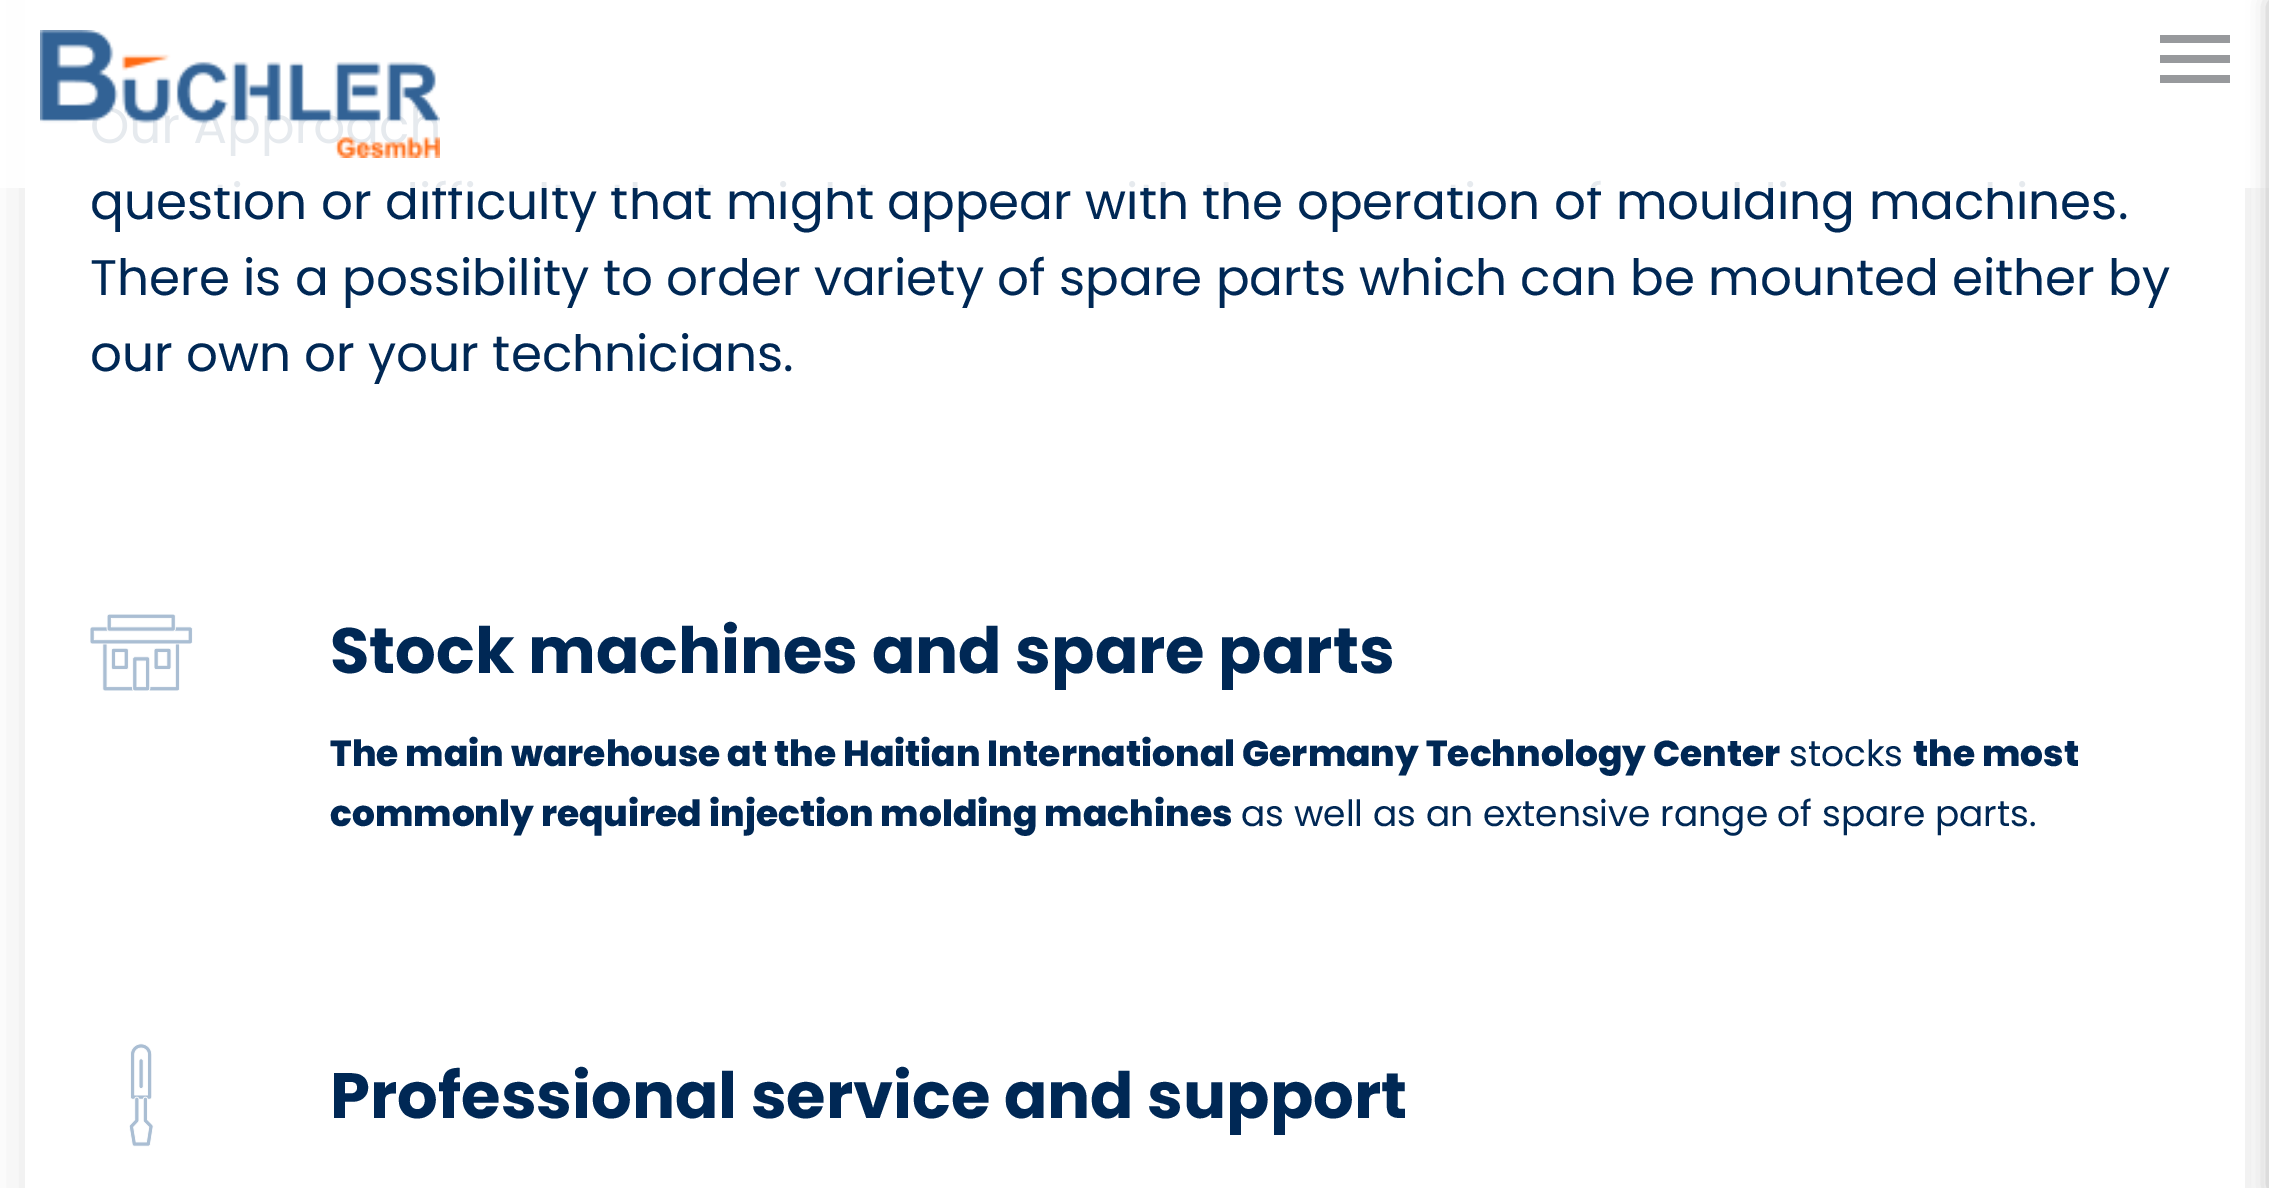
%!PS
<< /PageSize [2269 1188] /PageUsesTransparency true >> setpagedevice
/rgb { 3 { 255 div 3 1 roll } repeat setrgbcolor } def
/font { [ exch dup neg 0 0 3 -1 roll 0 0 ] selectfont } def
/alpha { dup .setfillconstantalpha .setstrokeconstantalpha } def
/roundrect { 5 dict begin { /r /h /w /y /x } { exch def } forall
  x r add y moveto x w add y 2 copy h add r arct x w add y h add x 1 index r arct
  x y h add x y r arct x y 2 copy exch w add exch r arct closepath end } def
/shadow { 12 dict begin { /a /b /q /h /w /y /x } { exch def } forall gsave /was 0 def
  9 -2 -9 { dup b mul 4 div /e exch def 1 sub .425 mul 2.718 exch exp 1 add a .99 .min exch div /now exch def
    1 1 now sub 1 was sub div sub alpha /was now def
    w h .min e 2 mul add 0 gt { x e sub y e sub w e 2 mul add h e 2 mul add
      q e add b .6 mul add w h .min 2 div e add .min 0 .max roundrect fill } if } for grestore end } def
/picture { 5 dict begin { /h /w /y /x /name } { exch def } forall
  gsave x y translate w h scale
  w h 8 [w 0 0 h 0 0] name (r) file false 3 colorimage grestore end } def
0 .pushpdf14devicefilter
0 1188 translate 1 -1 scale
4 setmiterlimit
255 255 255 rgb
0 0 2269 1188 rectfill
gsave
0 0 moveto 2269 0 lineto 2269 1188 lineto 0 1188 lineto closepath 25 -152 moveto 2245 -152 lineto 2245 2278 lineto 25 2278 lineto closepath eoclip newpath
0 0 0 rgb
25 -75 2220 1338 0 25 0.1 shadow
grestore
(img/2.rgb) 90 614 103 77 picture
(img/3.rgb) 129 1043 25 104 picture
/Poppins-Regular 50 font
0 40 85 rgb
90 219 moveto (question or difficulty that might appear with the operation of moulding machines.) show
0.9 alpha
[
  [0 0 2269 188 255 255 255]
] { aload pop rgb rectfill } forall
1 alpha
[
  [2160 75 70 8 151 153 156]
  [2160 35 70 8 151 153 156]
  [2160 55 70 8 151 153 156]
] { aload pop rgb rectfill } forall
0 0 0 rgb
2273 3 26 1185 0 10 0.4 shadow
(img/1.rgb) 40 30 400 128 picture
0 40 85 rgb
90 295 moveto (There is a possibility to order variety of spare parts which can be mounted either by) show
90 371 moveto (our own or your technicians.) show
/Poppins-Bold 64 font
330 673 moveto (Stock machines and spare parts) show
/Poppins-ExtraBold 36 font
330 766 moveto (The main warehouse at the Haitian International Germany Technology Center) show
/Poppins-Regular 36 font
1789 766 moveto (stocks) show
/Poppins-ExtraBold 36 font
1913 766 moveto (the most) show
330 826 moveto (commonly required injection molding machines) show
/Poppins-Regular 36 font
1241 826 moveto (as well as an extensive range of spare parts.) show
/Poppins-Bold 64 font
330 1118 moveto (Professional service and support) show
.poppdf14devicefilter showpage
